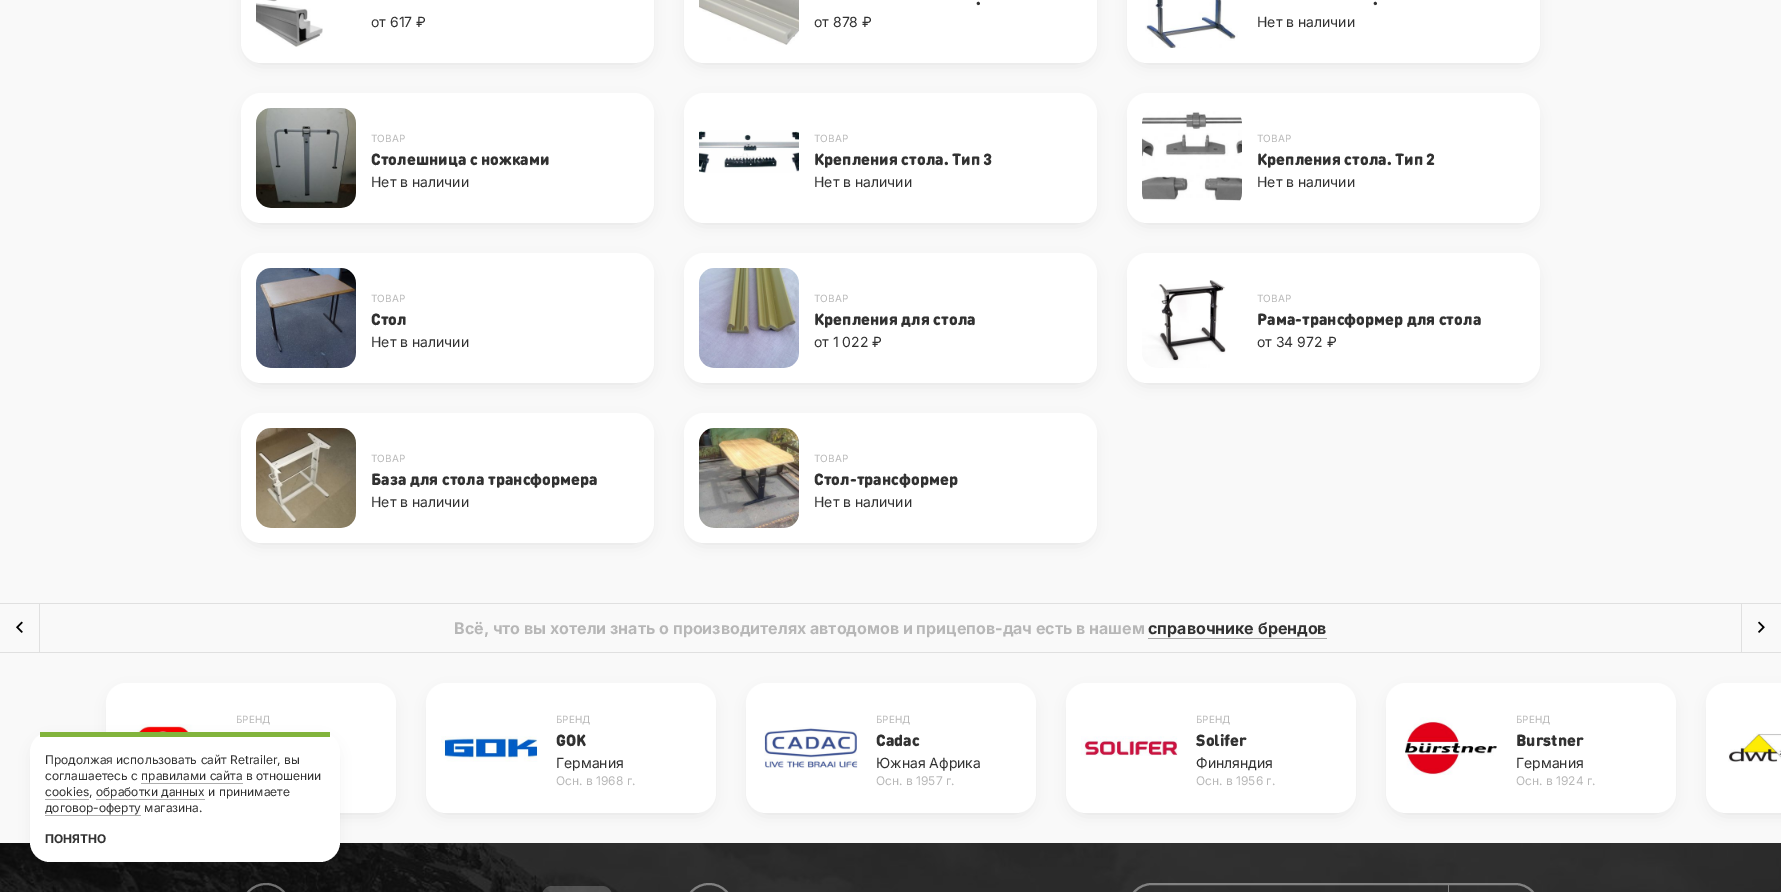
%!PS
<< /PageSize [1781 892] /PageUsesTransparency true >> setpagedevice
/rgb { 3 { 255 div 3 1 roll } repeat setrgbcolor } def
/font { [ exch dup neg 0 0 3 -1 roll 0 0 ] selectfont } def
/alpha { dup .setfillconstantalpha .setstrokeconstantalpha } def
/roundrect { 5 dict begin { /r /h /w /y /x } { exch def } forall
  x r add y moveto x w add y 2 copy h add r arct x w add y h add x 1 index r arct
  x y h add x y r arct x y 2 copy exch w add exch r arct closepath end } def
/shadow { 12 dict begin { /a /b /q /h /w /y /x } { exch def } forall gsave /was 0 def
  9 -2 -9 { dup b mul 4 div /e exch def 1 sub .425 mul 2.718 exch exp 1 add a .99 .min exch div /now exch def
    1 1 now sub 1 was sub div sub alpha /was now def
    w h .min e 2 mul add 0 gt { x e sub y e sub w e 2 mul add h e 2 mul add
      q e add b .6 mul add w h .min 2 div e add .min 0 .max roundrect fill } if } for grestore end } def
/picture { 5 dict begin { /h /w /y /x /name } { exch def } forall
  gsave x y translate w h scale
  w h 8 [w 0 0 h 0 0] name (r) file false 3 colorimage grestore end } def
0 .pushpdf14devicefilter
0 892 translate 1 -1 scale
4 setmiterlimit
249 249 249 rgb
0 0 1781 892 rectfill
0 0 0 rgb
246 -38 403 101 15 7.5 0.1 shadow
255 255 255 rgb
241 -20 413 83 20 roundrect fill
(img/1.rgb) 256 0 67 47 picture
0 0 0 rgb
689 -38 403 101 15 7.5 0.1 shadow
255 255 255 rgb
684 -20 413 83 20 roundrect fill
(img/2.rgb) 699 0 100 45 picture
0 0 0 rgb
1132 -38 403 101 15 7.5 0.1 shadow
255 255 255 rgb
1127 -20 413 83 20 roundrect fill
(img/3.rgb) 1145 0 93 48 picture
0 0 0 rgb
246 103 403 120 15 7.5 0.1 shadow
255 255 255 rgb
241 93 413 130 20 roundrect fill
(img/4.rgb) 256 108 100 100 picture
0 0 0 rgb
689 103 403 120 15 7.5 0.1 shadow
255 255 255 rgb
684 93 413 130 20 roundrect fill
(img/5.rgb) 699 130 100 43 picture
0 0 0 rgb
1132 103 403 120 15 7.5 0.1 shadow
255 255 255 rgb
1127 93 413 130 20 roundrect fill
(img/6.rgb) 1142 111 100 90 picture
0 0 0 rgb
246 263 403 120 15 7.5 0.1 shadow
255 255 255 rgb
241 253 413 130 20 roundrect fill
(img/7.rgb) 256 268 100 100 picture
0 0 0 rgb
689 263 403 120 15 7.5 0.1 shadow
255 255 255 rgb
684 253 413 130 20 roundrect fill
(img/8.rgb) 699 268 100 100 picture
0 0 0 rgb
1132 263 403 120 15 7.5 0.1 shadow
255 255 255 rgb
1127 253 413 130 20 roundrect fill
(img/9.rgb) 1142 280 84 88 picture
0 0 0 rgb
246 423 403 120 15 7.5 0.1 shadow
255 255 255 rgb
241 413 413 130 20 roundrect fill
(img/10.rgb) 256 428 100 100 picture
0 0 0 rgb
689 423 403 120 15 7.5 0.1 shadow
255 255 255 rgb
684 413 413 130 20 roundrect fill
(img/11.rgb) 699 428 100 100 picture
[
  [0 603 1781 1 224 224 224]
  [0 652 1781 1 224 224 224]
  [39 604 1 48 224 224 224]
] { aload pop rgb rectfill } forall
(img/12.rgb) 16 621 7 12 picture
169 169 169 rgb
1148 638 179 1 rectfill
224 224 224 rgb
1741 604 1 48 rectfill
(img/13.rgb) 1758 621 7 12 picture
0 0 0 rgb
111 693 280 120 15 7.5 0.1 shadow
255 255 255 rgb
106 683 290 130 20 roundrect fill
(img/14.rgb) 121 724 96 8 picture
0 0 0 rgb
431 693 280 120 15 7.5 0.1 shadow
255 255 255 rgb
426 683 290 130 20 roundrect fill
(img/15.rgb) 441 736 97 26 picture
0 0 0 rgb
751 693 280 120 15 7.5 0.1 shadow
255 255 255 rgb
746 683 290 130 20 roundrect fill
(img/16.rgb) 764 727 94 41 picture
0 0 0 rgb
1071 693 280 120 15 7.5 0.1 shadow
255 255 255 rgb
1066 683 290 130 20 roundrect fill
(img/17.rgb) 1081 736 97 20 picture
0 0 0 rgb
1391 693 280 120 15 7.5 0.1 shadow
255 255 255 rgb
1386 683 290 130 20 roundrect fill
(img/18.rgb) 1405 717 92 58 picture
0 0 0 rgb
1711 693 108 120 15 7.5 0.1 shadow
255 255 255 rgb
1726 683 moveto 1781 683 lineto 1781 813 lineto 1726 813 lineto 1715 813 1706 804 1706 793 curveto 1706 703 lineto 1706 692 1715 683 1726 683 curveto closepath fill
(img/19.rgb) 1728 733 53 29 picture
30 30 30 rgb
0 843 1781 49 rectfill
(img/20.rgb) 0 843 1781 49 picture
0.4 alpha
255 255 255 rgb
2 setlinewidth
242 884 48 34 24 roundrect stroke
0.2 alpha
542 886 70 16 10 roundrect fill
0.4 alpha
685 884 48 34 24 roundrect stroke
1128 884 411 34 24 roundrect stroke
1 alpha
130 130 130 rgb
1448 885 1 7 rectfill
0 0 0 rgb
35 742 300 120 15 7.5 0.1 shadow
255 255 255 rgb
30 732 310 130 20 roundrect fill
[
  [40 732 290 5 130 180 60]
  [141 783 102 1 173 173 173]
  [45 799 44 1 173 173 173]
  [96 799 109 1 173 173 173]
  [45 815 96 1 173 173 173]
] { aload pop rgb rectfill } forall
/Inter-Regular 14 font
50 50 50 rgb
371 27 moveto (от 617 ₽) show
/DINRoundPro-Black 16 font
976 5 moveto (.) show
/Inter-Regular 14 font
814 27 moveto (от 878 ₽) show
/DINRoundPro-Black 16 font
1373 5 moveto (.) show
/Inter-Regular 14 font
1257 27 moveto (Нет в наличии) show
/Inter-Regular 10 font
183 183 183 rgb
371 142 moveto (ТОВАР) show
/DINRoundPro-Black 16 font
50 50 50 rgb
371 165 moveto (Столешница с ножками) show
/Inter-Regular 14 font
371 187 moveto (Нет в наличии) show
/Inter-Regular 10 font
183 183 183 rgb
814 142 moveto (ТОВАР) show
/DINRoundPro-Black 16 font
50 50 50 rgb
814 165 moveto (Крепления стола. Тип 3) show
/Inter-Regular 14 font
814 187 moveto (Нет в наличии) show
/Inter-Regular 10 font
183 183 183 rgb
1257 142 moveto (ТОВАР) show
/DINRoundPro-Black 16 font
50 50 50 rgb
1257 165 moveto (Крепления стола. Тип 2) show
/Inter-Regular 14 font
1257 187 moveto (Нет в наличии) show
/Inter-Regular 10 font
183 183 183 rgb
371 302 moveto (ТОВАР) show
/DINRoundPro-Black 16 font
50 50 50 rgb
371 325 moveto (Стол) show
/Inter-Regular 14 font
371 347 moveto (Нет в наличии) show
/Inter-Regular 10 font
183 183 183 rgb
814 302 moveto (ТОВАР) show
/DINRoundPro-Black 16 font
50 50 50 rgb
814 325 moveto (Крепления для стола) show
/Inter-Regular 14 font
814 347 moveto (от 1 022 ₽) show
/Inter-Regular 10 font
183 183 183 rgb
1257 302 moveto (ТОВАР) show
/DINRoundPro-Black 16 font
50 50 50 rgb
1257 325 moveto (Рама-трансформер для стола) show
/Inter-Regular 14 font
1257 347 moveto (от 34 972 ₽) show
/Inter-Regular 10 font
183 183 183 rgb
371 462 moveto (ТОВАР) show
/DINRoundPro-Black 16 font
50 50 50 rgb
371 485 moveto (База для стола трансформера) show
/Inter-Regular 14 font
371 507 moveto (Нет в наличии) show
/Inter-Regular 10 font
183 183 183 rgb
814 462 moveto (ТОВАР) show
/DINRoundPro-Black 16 font
50 50 50 rgb
814 485 moveto (Стол-трансформер) show
/Inter-Regular 14 font
814 507 moveto (Нет в наличии) show
/Inter-Bold 16 font
183 183 183 rgb
454 634 moveto (Всё, что вы хотели знать о производителях автодомов и прицепов-дач есть в нашем) show
50 50 50 rgb
1148 634 moveto (справочнике брендов) show
/Inter-Regular 10 font
183 183 183 rgb
236 723 moveto (БРЕНД) show
556 723 moveto (БРЕНД) show
/DINRoundPro-Black 16 font
50 50 50 rgb
556 746 moveto (GOK) show
/Inter-Regular 14 font
556 768 moveto (Германия) show
/Inter-Regular 12 font
183 183 183 rgb
556 785 moveto (Осн. в 1968 г.) show
/Inter-Regular 10 font
876 723 moveto (БРЕНД) show
/DINRoundPro-Black 16 font
50 50 50 rgb
876 746 moveto (Cadac) show
/Inter-Regular 14 font
876 768 moveto (Южная Африка) show
/Inter-Regular 12 font
183 183 183 rgb
876 785 moveto (Осн. в 1957 г.) show
/Inter-Regular 10 font
1196 723 moveto (БРЕНД) show
/DINRoundPro-Black 16 font
50 50 50 rgb
1196 746 moveto (Solifer) show
/Inter-Regular 14 font
1196 768 moveto (Финляндия) show
/Inter-Regular 12 font
183 183 183 rgb
1196 785 moveto (Осн. в 1956 г.) show
/Inter-Regular 10 font
1516 723 moveto (БРЕНД) show
/DINRoundPro-Black 16 font
50 50 50 rgb
1516 746 moveto (Burstner) show
/Inter-Regular 14 font
1516 768 moveto (Германия) show
/Inter-Regular 12 font
183 183 183 rgb
1516 785 moveto (Осн. в 1924 г.) show
50 50 50 rgb
[
  [(Продолжая использовать сайт Retrailer, вы) 45 764]
  [(соглашаетесь с правилами сайта в отношении) 45 780]
  [(cookies, обработки данных и принимаете) 45 796]
  [(договор-оферту магазина.) 45 812]
] { aload pop moveto show } forall
/Inter-Bold 12 font
45 843 moveto (ПОНЯТНО) show
.poppdf14devicefilter showpage
